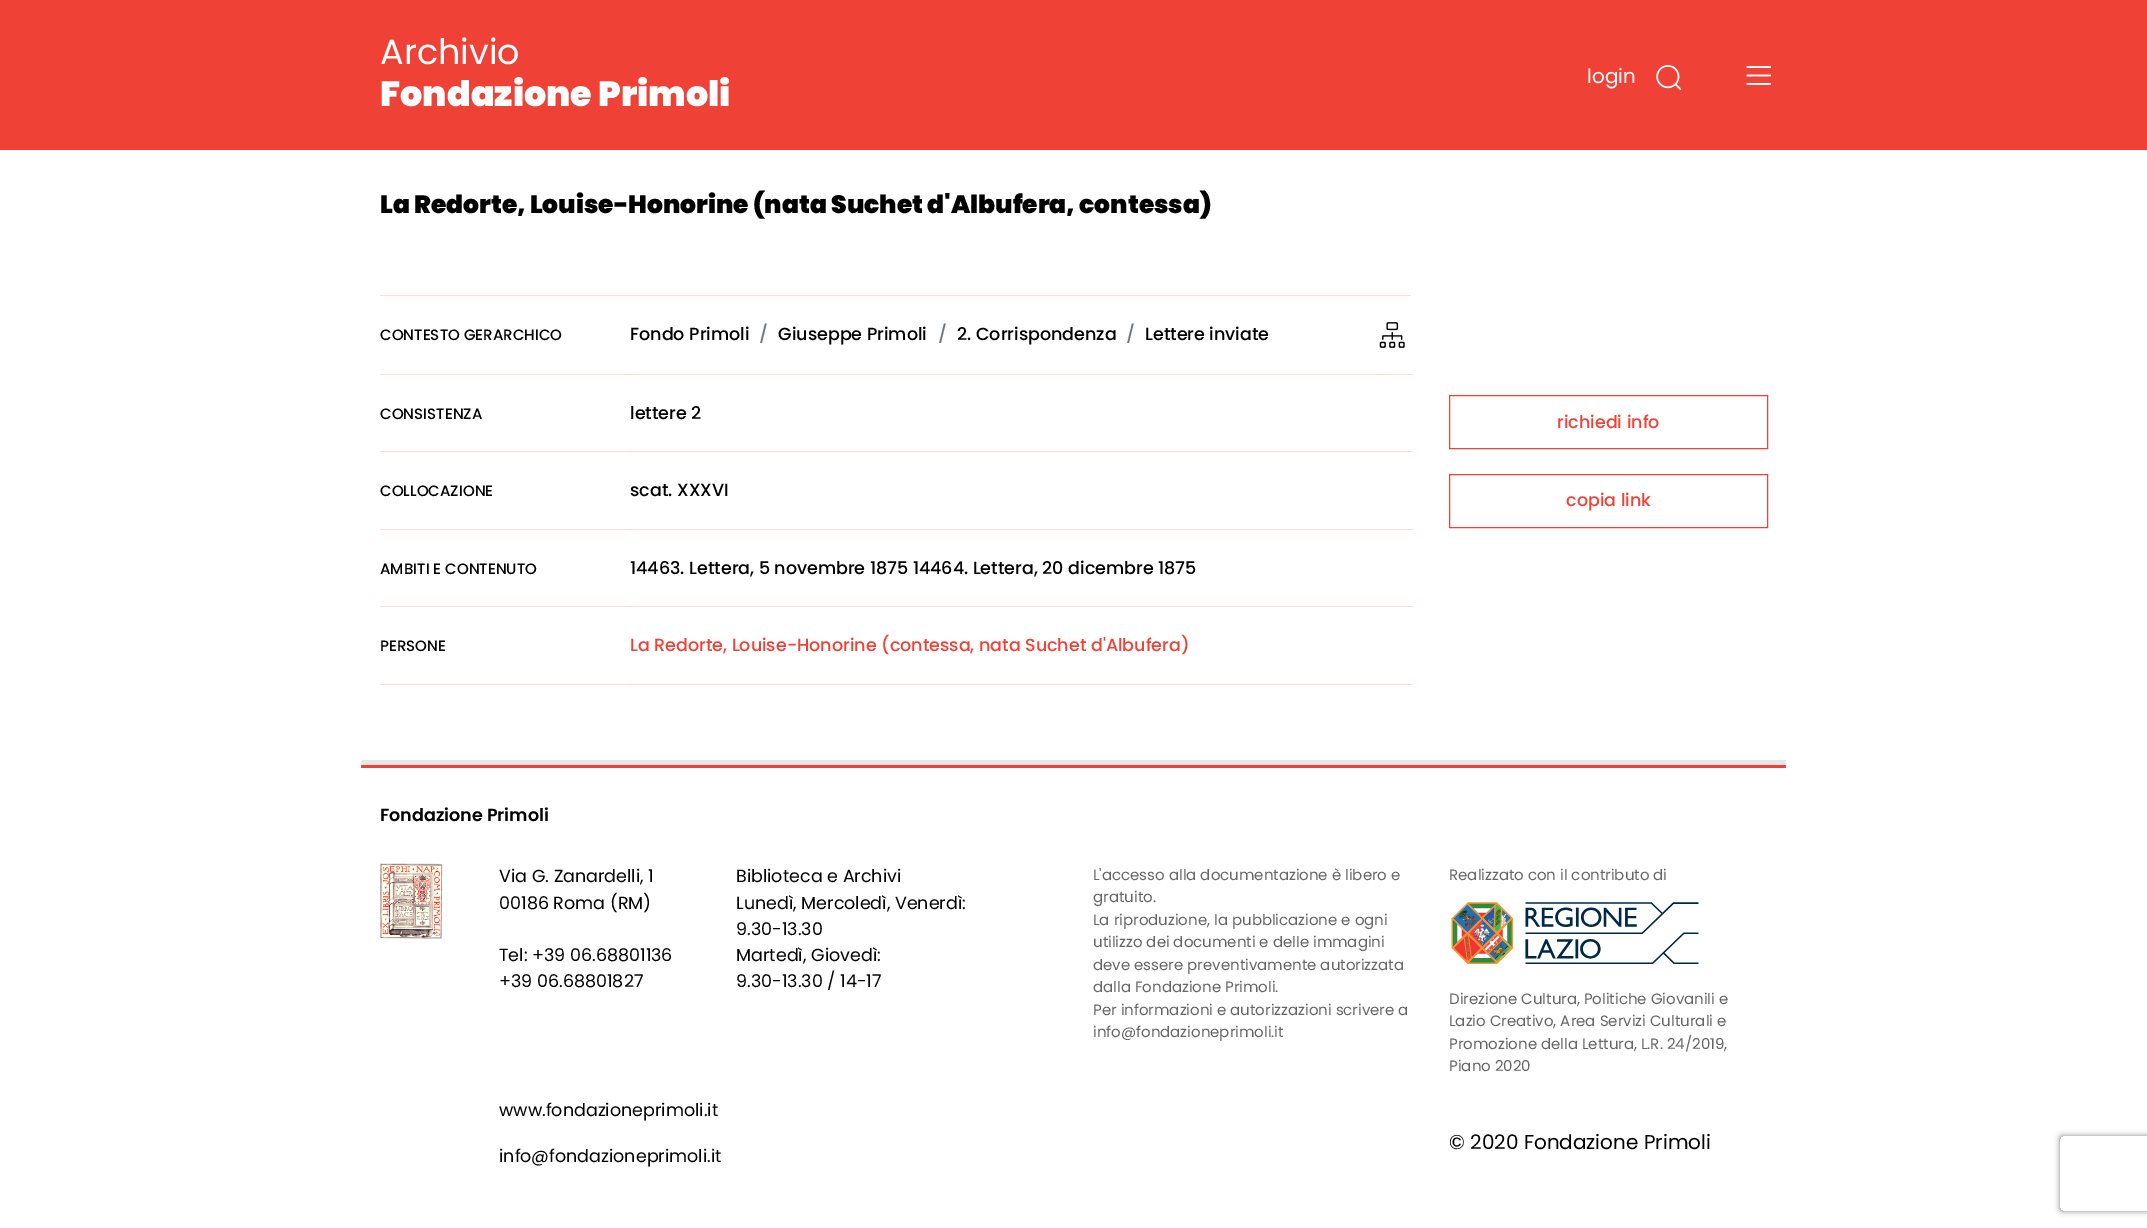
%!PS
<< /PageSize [2147 1228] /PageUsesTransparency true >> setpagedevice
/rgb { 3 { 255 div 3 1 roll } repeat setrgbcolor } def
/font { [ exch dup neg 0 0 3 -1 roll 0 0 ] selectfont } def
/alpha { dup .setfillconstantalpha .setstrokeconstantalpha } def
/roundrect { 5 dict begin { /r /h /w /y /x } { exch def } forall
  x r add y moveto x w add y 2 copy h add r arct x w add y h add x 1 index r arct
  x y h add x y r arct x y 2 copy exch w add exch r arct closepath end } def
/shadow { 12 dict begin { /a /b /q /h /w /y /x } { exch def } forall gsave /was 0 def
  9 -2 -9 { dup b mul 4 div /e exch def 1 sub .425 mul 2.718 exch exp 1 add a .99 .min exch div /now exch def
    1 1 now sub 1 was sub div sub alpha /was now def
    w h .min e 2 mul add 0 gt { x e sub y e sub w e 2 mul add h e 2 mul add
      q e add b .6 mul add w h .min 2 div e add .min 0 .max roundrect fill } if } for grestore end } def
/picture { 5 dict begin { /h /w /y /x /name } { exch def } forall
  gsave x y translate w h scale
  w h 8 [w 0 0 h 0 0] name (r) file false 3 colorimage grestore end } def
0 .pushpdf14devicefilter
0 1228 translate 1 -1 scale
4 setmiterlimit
255 255 255 rgb
0 0 2147 1228 rectfill
[
  [380 374 1033 1 255 220 220]
  [630 374 1 1 255 192 192]
  [380 451 1033 1 255 220 220]
  [380 529 1033 1 255 220 220]
  [380 606 1033 1 255 220 220]
  [380 684 1033 1 255 220 220]
  [0 0 2147 150 239 65 54]
] { aload pop rgb rectfill } forall
(img/1.rgb) 1656 65 25 25 picture
(img/2.rgb) 1746 66 25 19 picture
255 220 220 rgb
380 295 1031 1 rectfill
255 192 192 rgb
1379 374 1 1 rectfill
(img/3.rgb) 1379 322 26 26 picture
[
  [630 451 1 1 255 192 192]
  [630 529 1 1 255 192 192]
  [630 606 1 1 255 192 192]
  [630 684 1 1 255 192 192]
] { aload pop rgb rectfill } forall
239 65 54 rgb
1449.5 395.5 318 53 rectstroke
1449.5 474.5 318 53 rectstroke
232 230 230 rgb
361 760 1425 5 rectfill
239 65 54 rgb
361 765 1425 3 rectfill
(img/4.rgb) 380 863 63 76 picture
(img/5.rgb) 1451 902 248 62 picture
gsave
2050 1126 moveto 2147 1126 lineto 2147 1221 lineto 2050 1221 lineto closepath 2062.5 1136 moveto 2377.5 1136 lineto 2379 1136 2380 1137 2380 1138.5 curveto 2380 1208.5 lineto 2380 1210 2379 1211 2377.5 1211 curveto 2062.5 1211 lineto 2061 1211 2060 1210 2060 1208.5 curveto 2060 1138.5 lineto 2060 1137 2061 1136 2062.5 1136 curveto closepath eoclip newpath
128 128 128 rgb
2060 1136 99 75 2.5 3 1 shadow
grestore
/Poppins-Regular 35 font
255 255 255 rgb
380 64 moveto (Archivio) show
/Poppins-Black 35 font
380 106 moveto (Fondazione Primoli) show
/Poppins-Regular 20 font
1587 83 moveto (login) show
/Poppins-Black 25 font
0 0 0 rgb
380 213 moveto (La Redorte, Louise-Honorine \(nata Suchet d'Albufera, contessa\)) show
/Poppins-Medium 15 font
380 340 moveto (CONTESTO GERARCHICO) show
/Poppins-Medium 17.5 font
630 340 moveto (Fondo Primoli) show
108 117 125 rgb
759 340 moveto (/) show
0 0 0 rgb
778 340 moveto (Giuseppe Primoli) show
108 117 125 rgb
938 340 moveto (/) show
0 0 0 rgb
957 340 moveto (2. Corrispondenza) show
108 117 125 rgb
1126 340 moveto (/) show
0 0 0 rgb
1145 340 moveto (Lettere inviate) show
/Poppins-Medium 15 font
380 419 moveto (CONSISTENZA) show
/Poppins-Medium 17.5 font
630 419 moveto (lettere 2) show
/Poppins-Medium 15 font
380 496 moveto (COLLOCAZIONE) show
/Poppins-Medium 17.5 font
630 496 moveto (scat. XXXVI) show
/Poppins-Medium 15 font
380 574 moveto (AMBITI E CONTENUTO) show
/Poppins-Medium 17.5 font
630 574 moveto (14463. Lettera, 5 novembre 1875 14464. Lettera, 20 dicembre 1875) show
/Poppins-Medium 15 font
380 651 moveto (PERSONE) show
/Poppins-Medium 17.5 font
239 65 54 rgb
[
  [(La Redorte, Louise-Honorine \(contessa, nata Suchet d'Albufera\)) 630 651]
  [(richiedi info) 1557 428]
  [(copia link) 1566 506]
] { aload pop moveto show } forall
/Poppins-SemiBold 17.5 font
0 0 0 rgb
380 821 moveto (Fondazione Primoli) show
/Poppins-Regular 17.5 font
[
  [(Via G. Zanardelli, 1) 499 882]
  [(00186 Roma \(RM\)) 499 909]
  [(Tel: +39 06.68801136) 499 961]
  [(+39 06.68801827) 499 987]
  [(Biblioteca e Archivi) 736 882]
  [(Lunedì, Mercoledì, Venerdì:) 736 909]
  [(9.30-13.30) 736 935]
  [(Martedì, Giovedì:) 736 961]
  [(9.30-13.30 / 14-17) 736 987]
] { aload pop moveto show } forall
/Poppins-Regular 15 font
102 102 102 rgb
[
  [(L'accesso alla documentazione è libero e) 1093 880]
  [(gratuito.) 1093 902]
  [(La riproduzione, la pubblicazione e ogni) 1093 925]
  [(utilizzo dei documenti e delle immagini) 1093 947]
  [(deve essere preventivamente autorizzata) 1093 970]
  [(dalla Fondazione Primoli.) 1093 992]
  [(Per informazioni e autorizzazioni scrivere a) 1093 1015]
  [(info@fondazioneprimoli.it) 1093 1037]
  [(Realizzato con il contributo di) 1449 880]
  [(Direzione Cultura, Politiche Giovanili e) 1449 1004]
  [(Lazio Creativo, Area Servizi Culturali e) 1449 1026]
  [(Promozione della Lettura, L.R. 24/2019,) 1449 1049]
  [(Piano 2020) 1449 1071]
] { aload pop moveto show } forall
/Poppins-Regular 17.5 font
0 0 0 rgb
499 1116 moveto (www.fondazioneprimoli.it) show
499 1162 moveto (info@fondazioneprimoli.it) show
/Poppins-Regular 20 font
1449 1149 moveto (© 2020 Fondazione Primoli) show
.poppdf14devicefilter showpage
